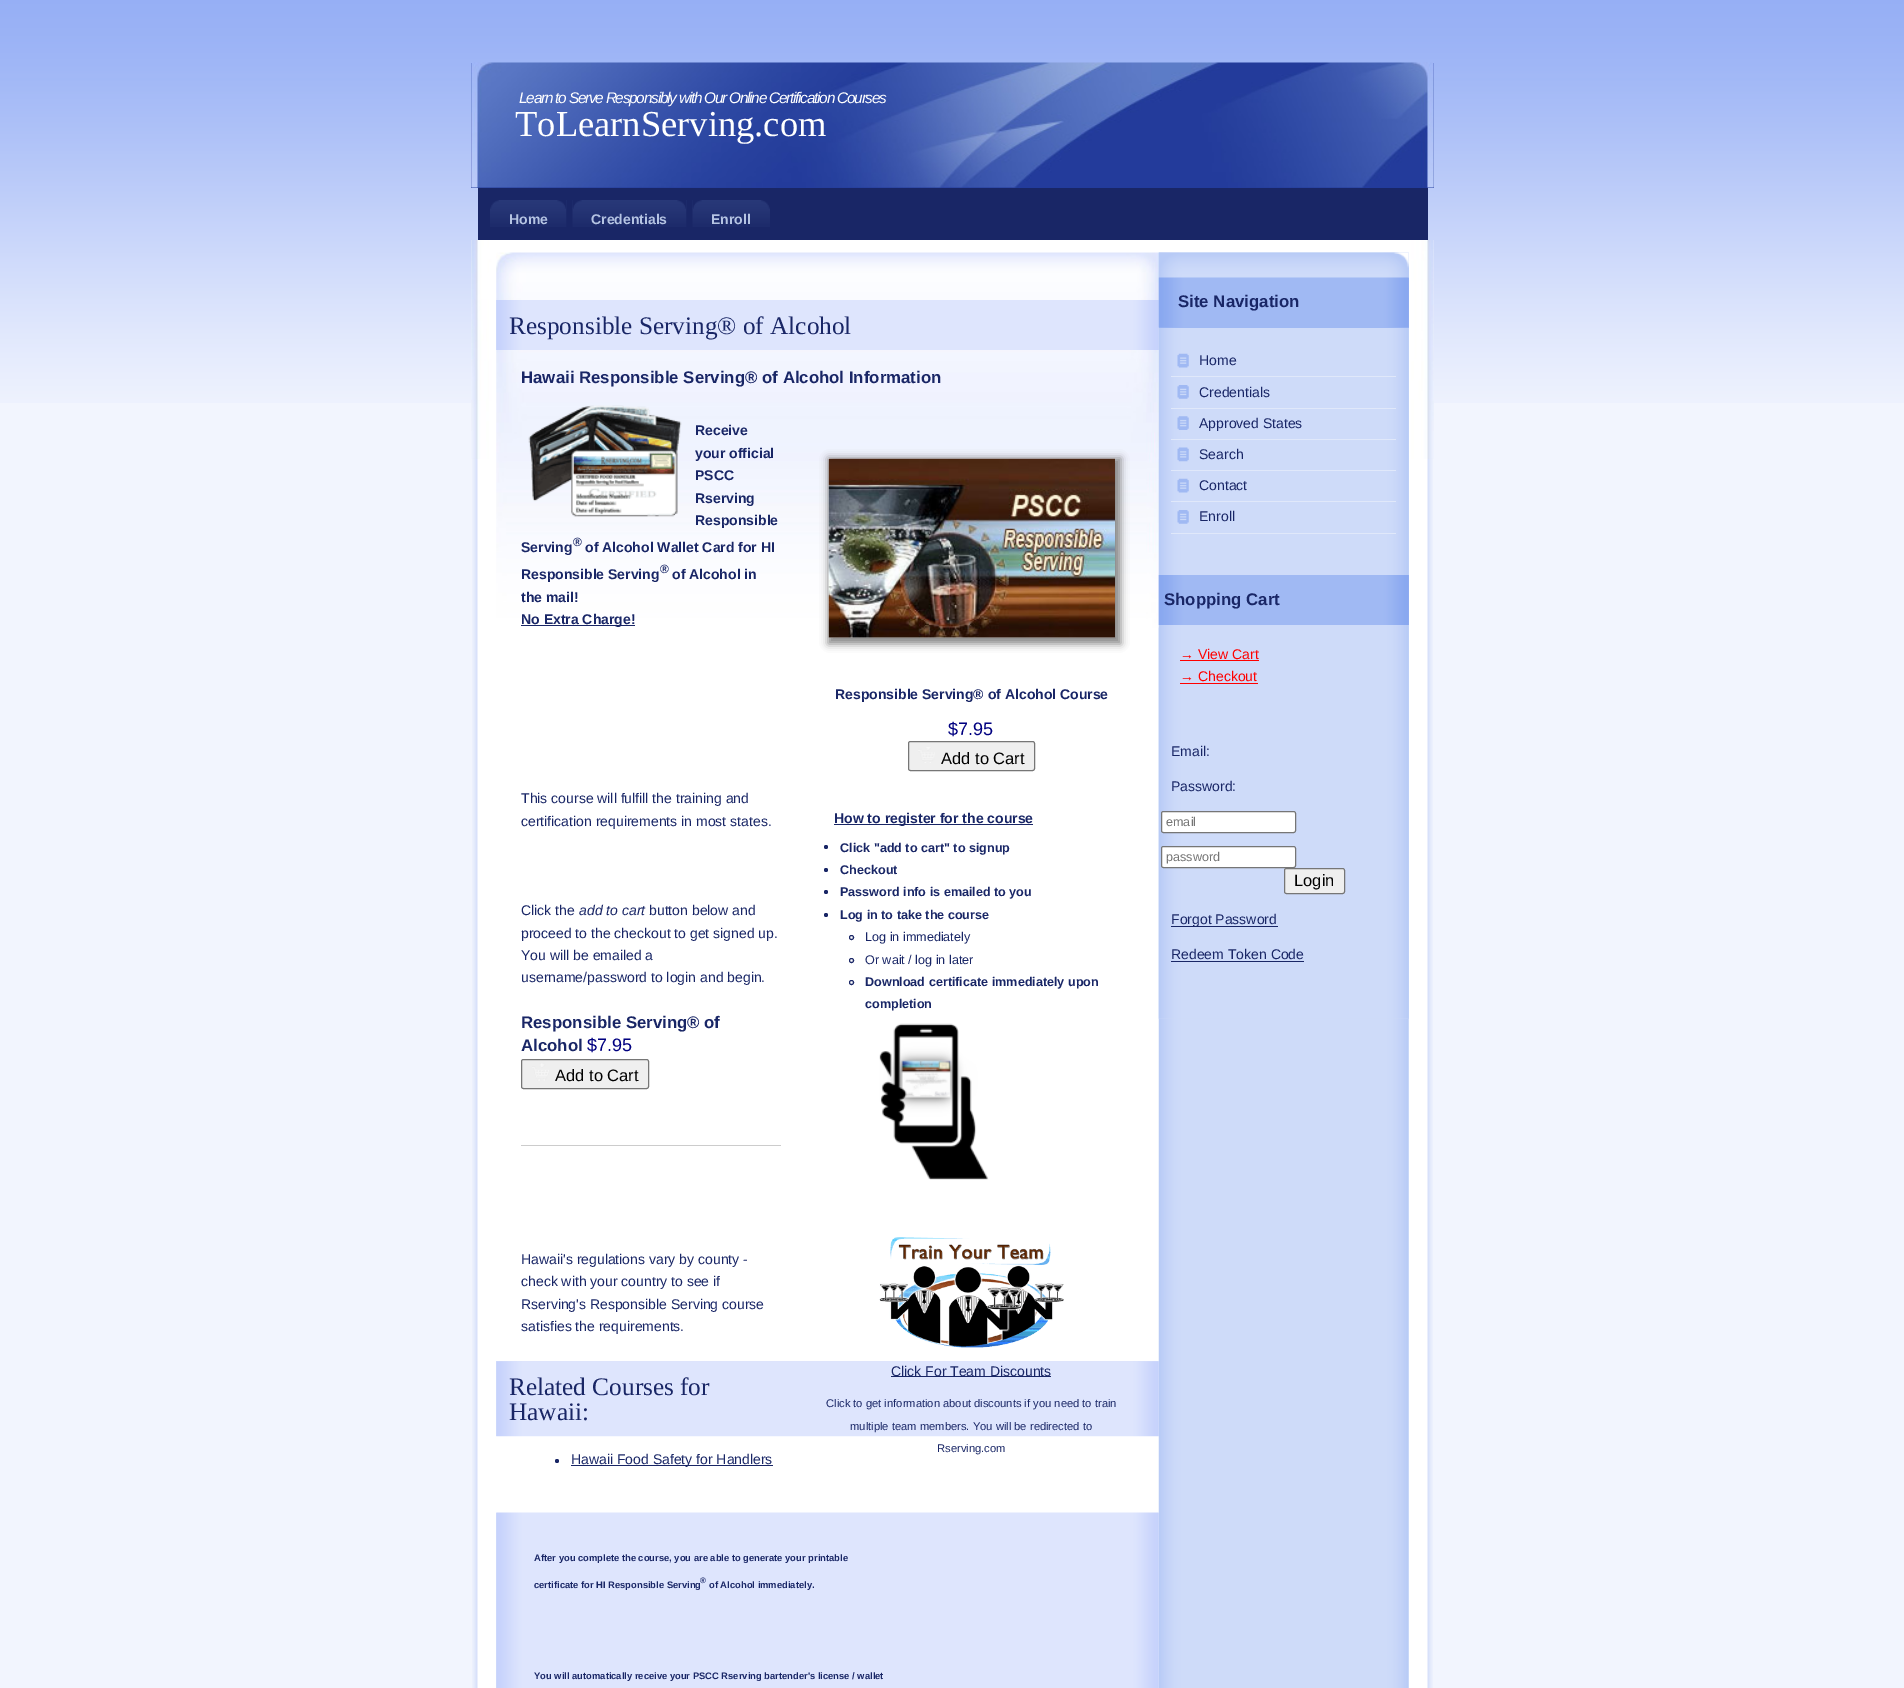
%!PS
<< /PageSize [1904 1688] /PageUsesTransparency true >> setpagedevice
/rgb { 3 { 255 div 3 1 roll } repeat setrgbcolor } def
/font { [ exch dup neg 0 0 3 -1 roll 0 0 ] selectfont } def
/alpha { dup .setfillconstantalpha .setstrokeconstantalpha } def
/circle { newpath 0 360 arc closepath } def
/roundrect { 5 dict begin { /r /h /w /y /x } { exch def } forall
  x r add y moveto x w add y 2 copy h add r arct x w add y h add x 1 index r arct
  x y h add x y r arct x y 2 copy exch w add exch r arct closepath end } def
/shadow { 12 dict begin { /a /b /q /h /w /y /x } { exch def } forall gsave /was 0 def
  9 -2 -9 { dup b mul 4 div /e exch def 1 sub .425 mul 2.718 exch exp 1 add a .99 .min exch div /now exch def
    1 1 now sub 1 was sub div sub alpha /was now def
    w h .min e 2 mul add 0 gt { x e sub y e sub w e 2 mul add h e 2 mul add
      q e add b .6 mul add w h .min 2 div e add .min 0 .max roundrect fill } if } for grestore end } def
/picture { 5 dict begin { /h /w /y /x /name } { exch def } forall
  gsave x y translate w h scale
  w h 8 [w 0 0 h 0 0] name (r) file false 3 colorimage grestore end } def
0 .pushpdf14devicefilter
0 1688 translate 1 -1 scale
4 setmiterlimit
242 245 254 rgb
0 0 1904 1688 rectfill
(img/1.rgb) 0 0 1904 403 picture
35 60 155 rgb
471 63 963 125 rectfill
(img/2.rgb) 471 62 963 126 picture
25 38 102 rgb
478 188 950 52 rectfill
(img/3.rgb) 490 200 77 27 picture
(img/4.rgb) 490 200 9 9 picture
(img/5.rgb) 557 200 9 9 picture
(img/6.rgb) 572 200 115 27 picture
(img/7.rgb) 572 200 10 9 picture
(img/5.rgb) 677 200 9 9 picture
(img/8.rgb) 692 200 78 27 picture
(img/9.rgb) 692 200 10 9 picture
(img/10.rgb) 761 200 9 9 picture
(img/11.rgb) 471 240 963 1448 picture
(img/12.rgb) 471 240 963 219 picture
(img/13.rgb) 496 252 663 376 picture
(img/14.rgb) 496 300 663 50 picture
(img/15.rgb) 528 405 154 112 picture
521 625 114 1 rectfill
136 136 136 rgb
828 458 293 186 0 4 1 shadow
(img/16.rgb) 828 458 287 180 picture
239 239 239 rgb
908.5 741.5 126 29 2 roundrect gsave fill grestore
118 118 118 rgb
stroke
(img/17.rgb) 918 747 17 16 picture
25 38 102 rgb
834 824 199 1 rectfill
826 847 2 circle fill
826 870 2 circle fill
826 892 2 circle fill
826 915 2 circle fill
851.5 937.5 2 circle stroke
851.5 960.5 2 circle stroke
851.5 982.5 2 circle stroke
(img/18.rgb) 879 1023 110 157 picture
(img/19.rgb) 879 1237 185 111 picture
222 229 253 rgb
496 1361 663 75 rectfill
(img/21.rgb) 496 1361 663 76 picture
25 38 102 rgb
891 1376 160 1 rectfill
239 239 239 rgb
521.5 1059.5 127 29 2 roundrect gsave fill grestore
118 118 118 rgb
stroke
(img/20.rgb) 532 1063 17 18 picture
204 204 204 rgb
521 1145 260 1 rectfill
25 38 102 rgb
557 1461 2 circle fill
571 1465 202 1 rectfill
(img/22.rgb) 496 1512 663 176 picture
206 219 249 rgb
1159 253 250 766 rectfill
(img/23.rgb) 1158 252 251 767 picture
(img/24.rgb) 1158 252 251 26 picture
160 185 243 rgb
1159 278 250 50 rectfill
(img/25.rgb) 1158 277 251 51 picture
224 232 250 rgb
1171 376 225 1 rectfill
(img/26.rgb) 1177 353 12 15 picture
1171 408 225 1 rectfill
(img/27.rgb) 1177 385 12 14 picture
1171 439 225 1 rectfill
(img/28.rgb) 1177 416 12 14 picture
1171 470 225 1 rectfill
(img/29.rgb) 1177 447 12 15 picture
1171 501 225 1 rectfill
(img/26.rgb) 1177 478 12 15 picture
1171 533 225 1 rectfill
(img/27.rgb) 1177 510 12 14 picture
(img/30.rgb) 1158 575 251 50 picture
255 0 0 rgb
1180 660 79 1 rectfill
1180 683 78 1 rectfill
255 255 255 rgb
1161.5 811.5 134 21 2 roundrect gsave fill grestore
118 118 118 rgb
stroke
255 255 255 rgb
1161.5 846.5 134 21 2 roundrect gsave fill grestore
118 118 118 rgb
stroke
239 239 239 rgb
1284.5 868.5 60 25 2 roundrect gsave fill grestore
118 118 118 rgb
stroke
25 38 102 rgb
1171 926 107 1 rectfill
1171 961 133 1 rectfill
/LiberationSans-Italic 15.4 font
255 255 255 rgb
519 103 moveto -1.25 0 (Learn to Serve Responsibly with Our Online Certification Courses) ashow
/LiberationSerif-Regular 36.5 font
515 136 moveto (ToLearnServing.com) show
/LiberationSans-Bold 14 font
181 196 227 rgb
[
  [(Home) 509 224]
  [(Credentials) 591 224]
  [(Enroll) 711 224]
] { aload pop moveto show } forall
/LiberationSerif-Regular 25.25 font
25 38 102 rgb
509 334 moveto (Responsible Serving® of Alcohol) show
/LiberationSans-Bold 16.8 font
521 383 moveto (Hawaii Responsible Serving® of Alcohol Information) show
/LiberationSans-Bold 14 font
[
  [(Receive) 695 435]
  [(your official) 695 458]
  [(PSCC) 695 480]
  [(Rserving) 695 503]
  [(Responsible) 695 525]
  [(Serving) 521 552]
] { aload pop moveto show } forall
/LiberationSans-Bold 12 font
573 546 moveto (®) show
/LiberationSans-Bold 14 font
585 552 moveto (of Alcohol Wallet Card for HI) show
521 579 moveto (Responsible Serving) show
/LiberationSans-Bold 12 font
660 573 moveto (®) show
/LiberationSans-Bold 14 font
[
  [(of Alcohol in) 672 579]
  [(the mail!) 521 602]
  [(No Extra Charge!) 521 624]
] { aload pop moveto show } forall
/LiberationSans-Regular 14 font
521 803 moveto (This course will fulfill the training and) show
521 826 moveto (certification requirements in most states.) show
/LiberationSans-Bold 9.4 font
534 1561 moveto (After you complete the course, you are able to generate your printable) show
534 1588 moveto (certificate for HI Responsible Serving) show
/LiberationSans-Bold 8 font
700 1583 moveto (®) show
/LiberationSans-Bold 9.4 font
709 1588 moveto (of Alcohol immediately.) show
534 1679 moveto (You will automatically receive your PSCC Rserving bartender's license / wallet) show
/LiberationSans-Bold 14 font
835 699 moveto (Responsible Serving® of Alcohol Course) show
/LiberationSans-Regular 18 font
0 0 128 rgb
948 735 moveto ($7.95) show
/LiberationSans-Regular 16.5 font
0 0 0 rgb
941 764 moveto (Add to Cart) show
/LiberationSans-Bold 14 font
25 38 102 rgb
834 823 moveto (How to register for the course) show
/LiberationSans-Bold 12.6 font
[
  [(Click "add to cart" to signup) 840 852]
  [(Checkout) 840 874]
  [(Password info is emailed to you) 840 896]
  [(Log in to take the course) 840 919]
] { aload pop moveto show } forall
/LiberationSans-Regular 12.6 font
865 941 moveto (Log in immediately) show
865 964 moveto (Or wait / log in later) show
/LiberationSans-Bold 12.6 font
865 986 moveto (Download certificate immediately upon) show
865 1008 moveto (completion) show
/LiberationSans-Regular 14 font
891 1376 moveto (Click For Team Discounts) show
/LiberationSans-Regular 11.2 font
[
  [(Click to get information about discounts if you need to train) 826 1407]
  [(multiple team members. You will be redirected to) 850 1430]
  [(Rserving.com) 937 1452]
] { aload pop moveto show } forall
/LiberationSans-Regular 14 font
521 915 moveto (Click the) show
/LiberationSans-Italic 14 font
579 915 moveto (add to cart) show
/LiberationSans-Regular 14 font
[
  [(button below and) 649 915]
  [(proceed to the checkout to get signed up.) 521 938]
  [(You will be emailed a) 521 960]
  [(username/password to login and begin.) 521 982]
] { aload pop moveto show } forall
/LiberationSans-Bold 16.8 font
521 1028 moveto (Responsible Serving® of) show
521 1051 moveto (Alcohol) show
/LiberationSans-Regular 18 font
0 0 128 rgb
587 1051 moveto ($7.95) show
/LiberationSans-Regular 16.5 font
0 0 0 rgb
555 1081 moveto (Add to Cart) show
/LiberationSans-Regular 14 font
25 38 102 rgb
[
  [(Hawaii's regulations vary by county -) 521 1264]
  [(check with your country to see if) 521 1286]
  [(Rserving's Responsible Serving course) 521 1309]
  [(satisfies the requirements.) 521 1331]
] { aload pop moveto show } forall
/LiberationSerif-Regular 25.25 font
509 1395 moveto (Related Courses for) show
509 1420 moveto (Hawaii:) show
/LiberationSans-Regular 14 font
571 1464 moveto (Hawaii Food Safety for Handlers) show
/LiberationSans-Bold 16.8 font
1178 307 moveto (Site Navigation) show
/LiberationSans-Regular 14 font
[
  [(Home) 1199 365]
  [(Credentials) 1199 397]
  [(Approved States) 1199 428]
  [(Search) 1199 459]
  [(Contact) 1199 490]
  [(Enroll) 1199 521]
] { aload pop moveto show } forall
/LiberationSans-Bold 16.8 font
1164 605 moveto (Shopping Cart) show
/LiberationSans-Regular 14 font
255 0 0 rgb
1180 659 moveto (→ View Cart) show
1180 681 moveto (→ Checkout) show
25 38 102 rgb
1171 756 moveto (Email:) show
1171 791 moveto (Password:) show
/LiberationSans-Regular 12.6 font
117 117 117 rgb
1166 826 moveto (email) show
1166 861 moveto (password) show
/LiberationSans-Regular 16.5 font
0 0 0 rgb
1294 886 moveto (Login) show
/LiberationSans-Regular 14 font
25 38 102 rgb
1171 924 moveto (Forgot Password) show
1171 959 moveto (Redeem Token Code) show
.poppdf14devicefilter showpage
